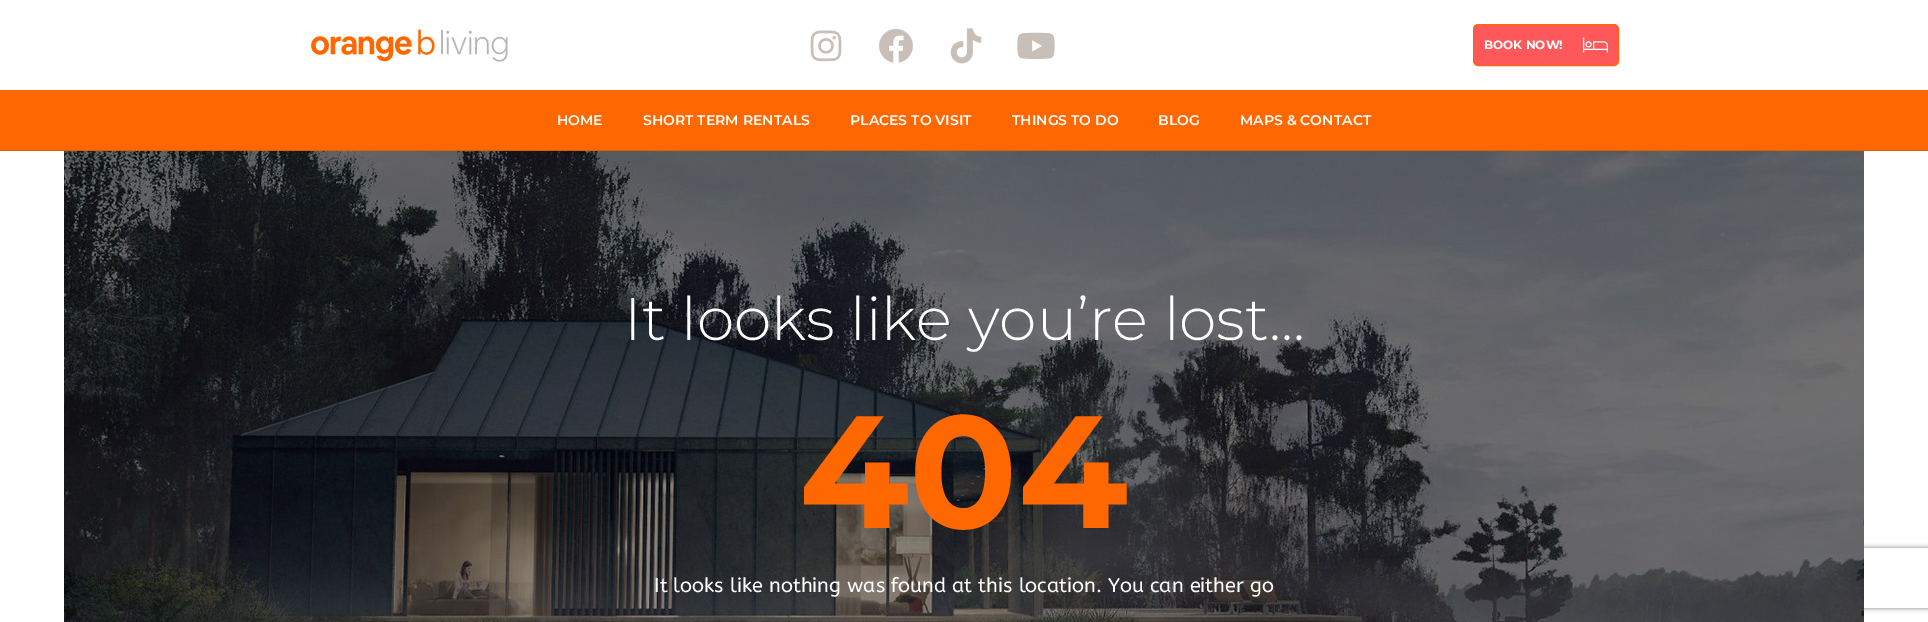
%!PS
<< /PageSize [1928 622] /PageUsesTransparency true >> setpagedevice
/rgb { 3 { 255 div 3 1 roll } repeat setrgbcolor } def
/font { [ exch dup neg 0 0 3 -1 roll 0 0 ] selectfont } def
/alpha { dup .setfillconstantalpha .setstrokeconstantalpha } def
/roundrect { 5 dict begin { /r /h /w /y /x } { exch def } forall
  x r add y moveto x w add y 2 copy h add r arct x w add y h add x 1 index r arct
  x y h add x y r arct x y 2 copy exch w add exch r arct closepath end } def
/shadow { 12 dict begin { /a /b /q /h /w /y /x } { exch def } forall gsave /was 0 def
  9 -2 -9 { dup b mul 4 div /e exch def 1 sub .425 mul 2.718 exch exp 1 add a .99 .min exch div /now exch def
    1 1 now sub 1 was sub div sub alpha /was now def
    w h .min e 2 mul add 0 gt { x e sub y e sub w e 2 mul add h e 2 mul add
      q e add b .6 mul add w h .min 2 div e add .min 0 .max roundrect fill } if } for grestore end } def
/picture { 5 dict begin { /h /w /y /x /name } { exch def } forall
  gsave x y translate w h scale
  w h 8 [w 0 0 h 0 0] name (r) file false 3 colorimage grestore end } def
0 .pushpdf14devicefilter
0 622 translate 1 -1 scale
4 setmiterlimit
255 255 255 rgb
0 0 1928 622 rectfill
(img/1.rgb) 311 29 197 33 picture
(img/2.rgb) 810 30 32 32 picture
(img/3.rgb) 879 29 34 34 picture
(img/4.rgb) 950 28 32 36 picture
(img/5.rgb) 1017 32 38 27 picture
255 88 91 rgb
1473.5 24.5 145 41 4.5 roundrect gsave fill grestore
255 103 0 rgb
stroke
(img/6.rgb) 1583 37 25 16 picture
0 90 1928 60 rectfill
230 93 0 rgb
0 150 1928 1 rectfill
gsave
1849 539 moveto 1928 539 lineto 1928 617 lineto 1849 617 lineto closepath 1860 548 moveto 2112 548 lineto 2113 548 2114 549 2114 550 curveto 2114 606 lineto 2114 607 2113 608 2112 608 curveto 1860 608 lineto 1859 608 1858 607 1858 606 curveto 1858 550 lineto 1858 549 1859 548 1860 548 curveto closepath eoclip newpath
128 128 128 rgb
1858 548 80 60 2 2.5 1 shadow
grestore
(img/7.rgb) 64 151 1800 471 picture
/Montserrat-Bold 12 font
255 255 255 rgb
1484 49 moveto (BOOK NOW!) show
/Montserrat-SemiBold 14 font
[
  [(HOME) 557 125]
  [(SHORT TERM RENTALS) 643 125]
  [(PLACES TO VISIT) 850 125]
  [(THINGS TO DO) 1012 125]
  [(BLOG) 1158 125]
  [(MAPS & CONTACT) 1240 125]
] { aload pop moveto show } forall
/Montserrat-Light 60 font
624 340 moveto (It looks like you’re lost...) show
/Montserrat-Bold 160 font
255 103 0 rgb
799 528 moveto (404) show
/ABeeZee-Regular 20 font
255 255 255 rgb
654 592 moveto (It looks like nothing was found at this location. You can either go) show
.poppdf14devicefilter showpage
